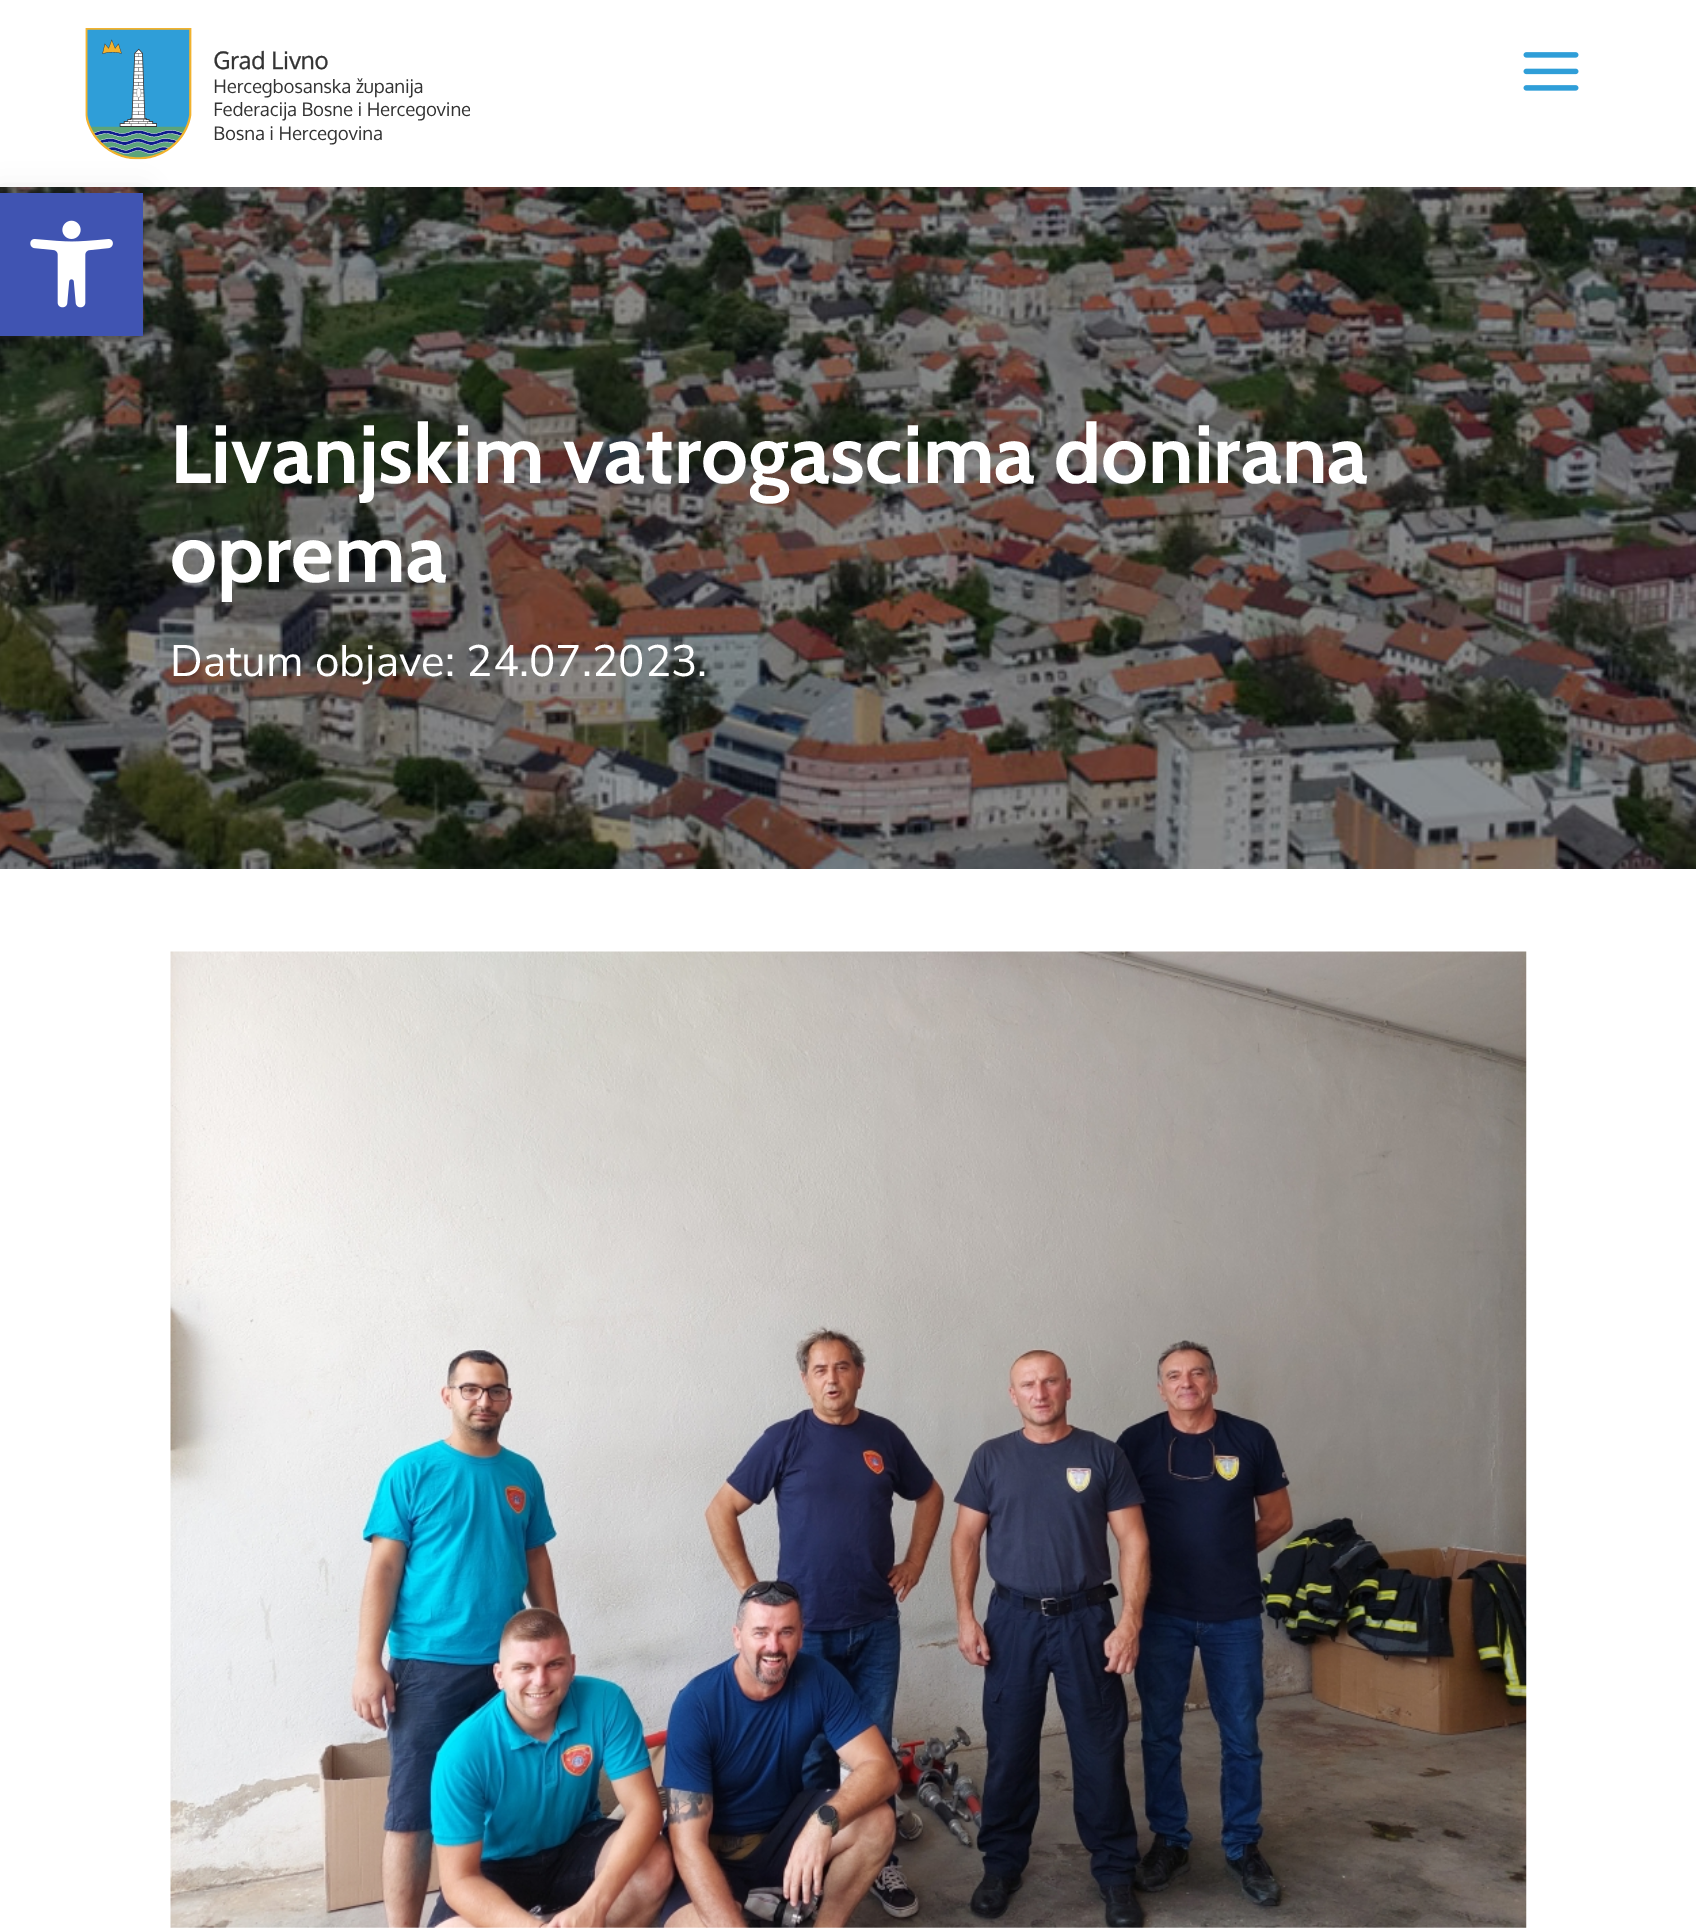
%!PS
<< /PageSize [1696 1928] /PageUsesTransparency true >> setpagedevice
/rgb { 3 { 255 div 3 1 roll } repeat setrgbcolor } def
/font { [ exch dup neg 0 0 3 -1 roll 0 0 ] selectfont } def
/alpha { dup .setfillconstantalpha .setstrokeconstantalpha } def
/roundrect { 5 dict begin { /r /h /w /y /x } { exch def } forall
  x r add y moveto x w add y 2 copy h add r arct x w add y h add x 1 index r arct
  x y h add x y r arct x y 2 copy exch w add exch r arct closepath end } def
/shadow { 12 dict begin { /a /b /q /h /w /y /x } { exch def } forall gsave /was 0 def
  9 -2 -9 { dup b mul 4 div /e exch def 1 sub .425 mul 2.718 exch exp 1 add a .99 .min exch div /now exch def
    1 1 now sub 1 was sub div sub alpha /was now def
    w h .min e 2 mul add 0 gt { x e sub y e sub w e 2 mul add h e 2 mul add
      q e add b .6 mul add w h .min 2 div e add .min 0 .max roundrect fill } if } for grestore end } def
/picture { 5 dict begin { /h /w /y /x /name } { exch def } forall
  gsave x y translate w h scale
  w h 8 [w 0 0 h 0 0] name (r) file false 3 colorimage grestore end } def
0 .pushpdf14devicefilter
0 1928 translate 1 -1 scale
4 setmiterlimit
255 255 255 rgb
0 0 1696 1928 rectfill
(img/2.rgb) 85 28 385 132 picture
(img/4.rgb) 0 187 1696 682 picture
0 0 0 rgb
0 193 143 143 0 14 0.1 shadow
64 84 178 rgb
0 193 143 143 rectfill
(img/1.rgb) 30 220 83 88 picture
(img/3.rgb) 1523 52 56 39 picture
(img/5.rgb) 170 951 1357 977 picture
/Cabin-Bold 82.5 font
255 255 255 rgb
170 483 moveto (Livanjskim vatrogascima donirana) show
170 582 moveto (oprema) show
/NunitoSans-Regular 44 font
170 676 moveto (Datum objave: 24.07.2023.) show
.poppdf14devicefilter showpage
